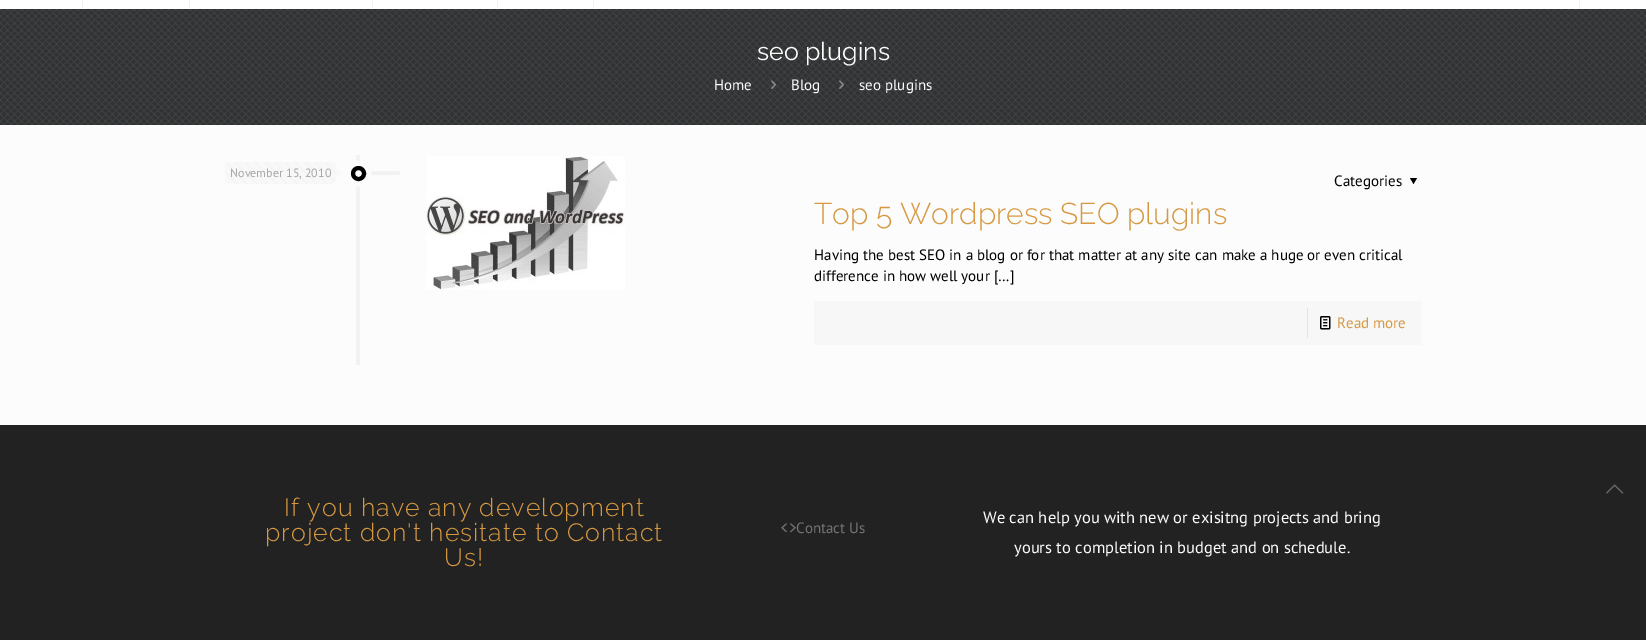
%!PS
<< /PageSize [1646 640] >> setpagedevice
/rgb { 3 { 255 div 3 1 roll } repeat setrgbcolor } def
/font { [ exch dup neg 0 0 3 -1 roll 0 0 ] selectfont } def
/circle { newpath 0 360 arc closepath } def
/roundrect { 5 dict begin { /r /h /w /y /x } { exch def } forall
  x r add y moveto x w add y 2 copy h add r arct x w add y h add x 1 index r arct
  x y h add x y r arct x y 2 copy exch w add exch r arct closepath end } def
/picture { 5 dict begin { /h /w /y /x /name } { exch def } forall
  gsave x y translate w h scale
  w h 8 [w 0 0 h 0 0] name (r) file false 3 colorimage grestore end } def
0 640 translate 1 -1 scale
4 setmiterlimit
252 252 252 rgb
0 0 1646 640 rectfill
[
  [0 0 1646 9 255 255 255]
  [189 0 1 8 242 242 242]
  [82 0 1 8 242 242 242]
  [372 0 1 8 242 242 242]
  [497 0 1 8 242 242 242]
  [593 0 1 8 242 242 242]
  [1579 0 1 8 242 242 242]
] { aload pop rgb rectfill } forall
(img/1.rgb) 0 9 1646 116 picture
(img/2.rgb) 771 80 5 9 picture
(img/3.rgb) 839 80 5 9 picture
(img/4.rgb) 356 155 44 210 picture
248 248 248 rgb
225 162 111 22 4 roundrect fill
(img/5.rgb) 225 162 111 22 picture
336 178 moveto 336 168 lineto 341 173 lineto closepath fill
0 0 0 rgb
4 setlinewidth
358.5 173.5 5.5 circle stroke
(img/6.rgb) 426 156 199 134 picture
1417 178 moveto 1413.5 184 lineto 1410 178 lineto closepath fill
247 247 247 rgb
814 301 607 44 rectfill
227 227 227 rgb
1307 308 1 30 rectfill
(img/7.rgb) 1320 316 11 14 picture
34 34 34 rgb
0 425 1646 215 rectfill
(img/8.rgb) 781 523 15 10 picture
(img/9.rgb) 1606 484 18 10 picture
/Raleway-Regular 25 font
252 252 252 rgb
757 60 moveto (seo plugins) show
/PTSans-Regular 15 font
[
  [(Home) 714 90]
  [(Blog) 791 90]
  [(seo plugins) 859 90]
] { aload pop moveto show } forall
/PTSans-Regular 12 font
168 168 168 rgb
230 177 moveto (November 15, 2010) show
/PTSans-Regular 15 font
0 0 0 rgb
1334 186 moveto (Categories) show
/Raleway-Light 30 font
214 153 66 rgb
814 224 moveto (Top 5 Wordpress SEO plugins) show
/PTSans-Regular 15 font
0 0 0 rgb
814 260 moveto (Having the best SEO in a blog or for that matter at any site can make a huge or even critical) show
814 281 moveto (difference in how well your […]) show
214 153 66 rgb
1337 328 moveto (Read more) show
/Raleway-Light 25 font
284 516 moveto 1 0 (If you have any development) ashow
265 541 moveto 1 0 (project don't hesitate to Contact) ashow
444 566 moveto 1 0 (Us!) ashow
/PTSans-Regular 15 font
116 116 116 rgb
796 533 moveto (Contact Us) show
/PTSans-Regular 16.5 font
252 252 252 rgb
983 523 moveto (We can help you with new or exisitng projects and bring) show
1014 553 moveto (yours to completion in budget and on schedule.) show
showpage
